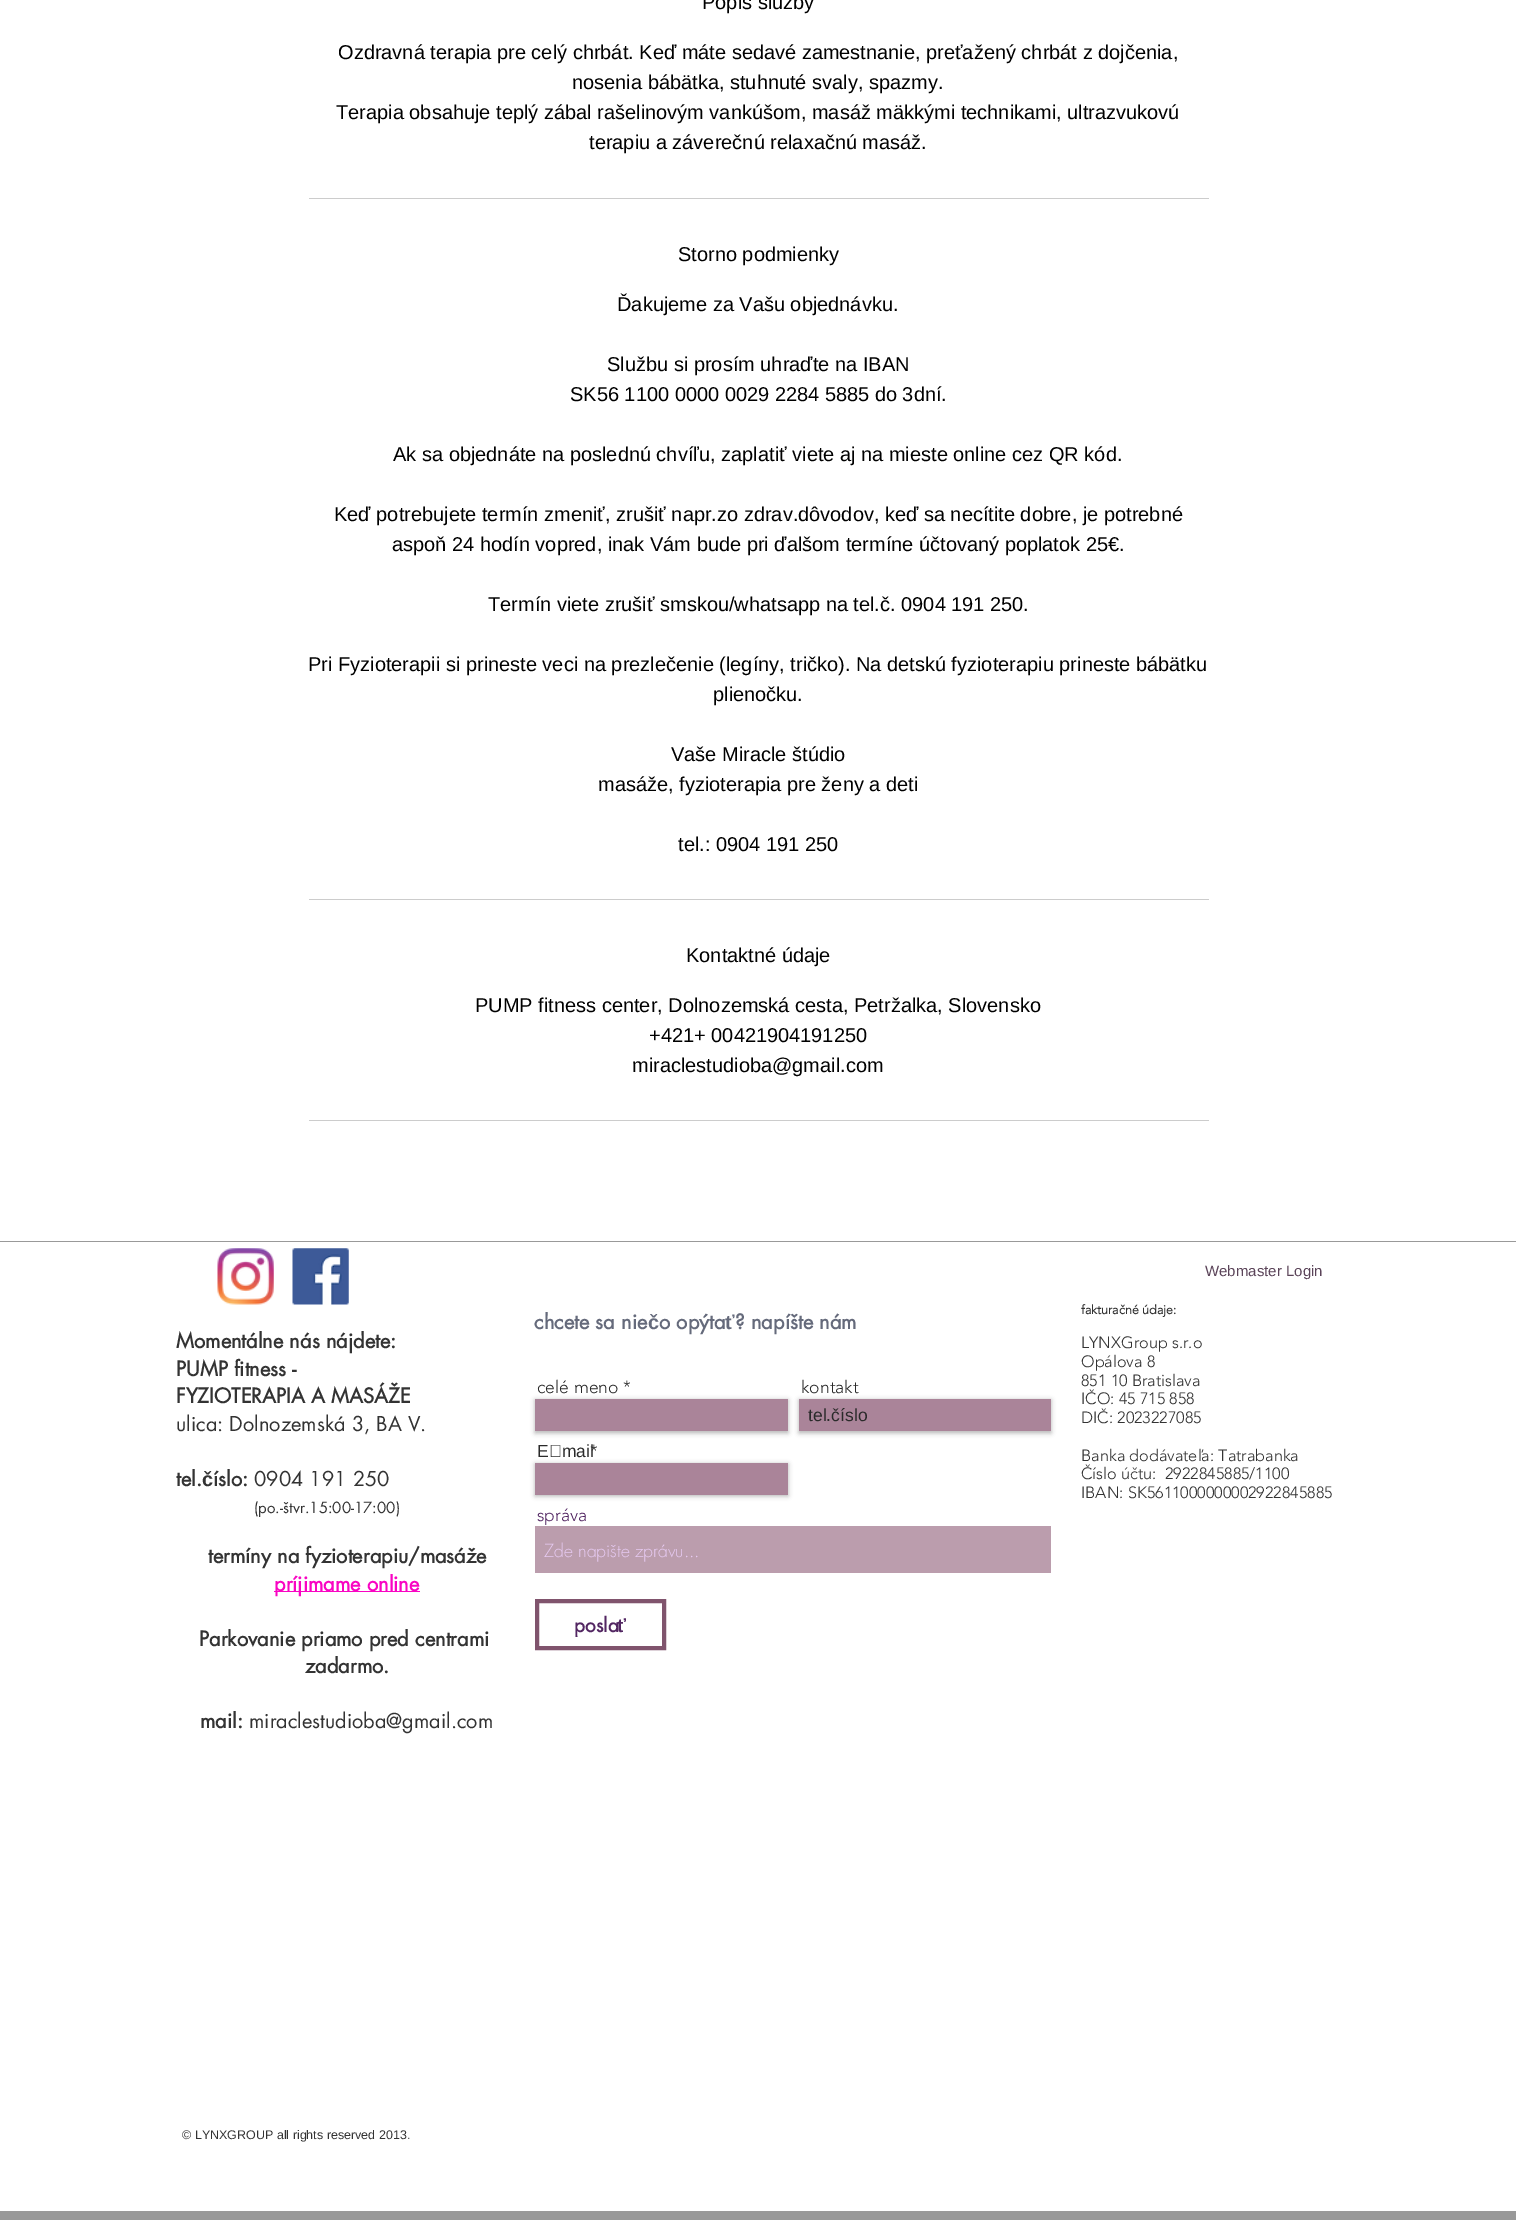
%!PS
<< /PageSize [1516 2220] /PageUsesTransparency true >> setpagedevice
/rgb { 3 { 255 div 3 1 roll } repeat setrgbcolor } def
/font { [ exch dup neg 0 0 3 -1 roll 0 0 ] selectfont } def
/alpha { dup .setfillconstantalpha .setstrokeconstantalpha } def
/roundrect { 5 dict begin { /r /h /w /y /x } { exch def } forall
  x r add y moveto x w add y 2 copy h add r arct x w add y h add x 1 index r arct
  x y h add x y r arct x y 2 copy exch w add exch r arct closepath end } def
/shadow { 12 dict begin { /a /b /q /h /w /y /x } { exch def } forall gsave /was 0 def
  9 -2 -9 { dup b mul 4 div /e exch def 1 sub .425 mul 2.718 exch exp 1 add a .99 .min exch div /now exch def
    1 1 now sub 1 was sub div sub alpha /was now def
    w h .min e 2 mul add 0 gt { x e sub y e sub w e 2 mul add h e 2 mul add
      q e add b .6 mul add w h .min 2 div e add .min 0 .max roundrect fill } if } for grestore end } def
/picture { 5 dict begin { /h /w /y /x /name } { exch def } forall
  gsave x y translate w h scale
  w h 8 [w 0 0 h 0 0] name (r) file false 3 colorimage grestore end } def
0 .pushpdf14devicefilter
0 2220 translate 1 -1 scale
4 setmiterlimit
255 255 255 rgb
0 0 1516 2220 rectfill
[
  [309 198 900 1 204 204 204]
  [309 899 900 1 204 204 204]
  [309 1120 900 1 204 204 204]
  [0 1241 1516 1 153 153 153]
  [0 2211 1516 9 153 153 153]
] { aload pop rgb rectfill } forall
(img/1.rgb) 217 1248 57 57 picture
(img/2.rgb) 292 1248 57 57 picture
249 4 195 rgb
274 1591 146 1 rectfill
0 0 0 rgb
535 1400 253 33 0 2.5 0.3 shadow
170 132 153 rgb
535 1399 253 32 rectfill
0 0 0 rgb
799 1400 252 33 0 2.5 0.3 shadow
170 132 153 rgb
799 1399 252 32 rectfill
0 0 0 rgb
535 1464 253 32 0 2.5 0.3 shadow
170 132 153 rgb
535 1463 253 32 rectfill
187 157 173 rgb
535 1526 516 47 rectfill
128 84 109 rgb
4 setlinewidth
537 1601 127 47 rectstroke
/LiberationSans-Regular 20 font
0 0 0 rgb
[
  [(Popis služby) 702 9]
  [(Ozdravná terapia pre celý chrbát. Keď máte sedavé zamestnanie, preťažený chrbát z dojčenia,) 338 59]
  [(nosenia bábätka, stuhnuté svaly, spazmy.) 572 89]
  [(Terapia obsahuje teplý zábal rašelinovým vankúšom, masáž mäkkými technikami, ultrazvukovú) 336 119]
  [(terapiu a záverečnú relaxačnú masáž.) 589 149]
  [(Storno podmienky) 678 261]
  [(Ďakujeme za Vašu objednávku.) 617 311]
  [(Službu si prosím uhraďte na IBAN) 607 371]
  [(SK56 1100 0000 0029 2284 5885 do 3dní.) 570 401]
  [(Ak sa objednáte na poslednú chvíľu, zaplatiť viete aj na mieste online cez QR kód.) 393 461]
  [(Keď potrebujete termín zmeniť, zrušiť napr.zo zdrav.dôvodov, keď sa necítite dobre, je potrebné) 334 521]
  [(aspoň 24 hodín vopred, inak Vám bude pri ďalšom termíne účtovaný poplatok 25€.) 392 551]
  [(Termín viete zrušiť smskou/whatsapp na tel.č. 0904 191 250.) 488 611]
  [(Pri Fyzioterapii si prineste veci na prezlečenie \(legíny, tričko\). Na detskú fyzioterapiu prineste bábätku) 308 671]
  [(plienočku.) 713 701]
  [(Vaše Miracle štúdio) 671 761]
  [(masáže, fyzioterapia pre ženy a deti) 598 791]
  [(tel.: 0904 191 250) 678 851]
  [(Kontaktné údaje) 686 962]
  [(PUMP fitness center, Dolnozemská cesta, Petržalka, Slovensko) 475 1012]
  [(+421+ 00421904191250) 649 1042]
  [(miraclestudioba@gmail.com) 632 1072]
] { aload pop moveto show } forall
/LiberationSans-Regular 15 font
91 68 89 rgb
1205 1276 moveto (Webmaster Login) show
/futura-Bold 20 font
51 51 51 rgb
[
  [(Momentálne nás nájdete:) 176 1348]
  [(PUMP fitness -) 176 1376]
  [(FYZIOTERAPIA A MASÁŽE) 176 1403]
] { aload pop moveto show } forall
/futura-Regular 20 font
176 1431 moveto (ulica: Dolnozemská 3, BA V.) show
/futura-Bold 20 font
176 1486 moveto (tel.) show
/LiberationSans-Bold 20 font
202 1486 moveto (č) show
/futura-Bold 20 font
213 1486 moveto (íslo:) show
/futura-Regular 20 font
254 1486 moveto (0904 191 250) show
/futura-Regular 15 font
254 1513 moveto (\(po.-štvr.15:00-17:00\)) show
/futura-Bold 20 font
208 1563 moveto (termíny na fyzioterapiu/masáže) show
249 4 195 rgb
274 1591 moveto (príjimame online) show
51 51 51 rgb
[
  [(Parkovanie priamo pred centrami) 199 1646]
  [(zadarmo.) 305 1673]
  [(mail:) 200 1728]
] { aload pop moveto show } forall
/futura-Regular 20 font
249 1728 moveto (miraclestudioba@gmail.com) show
/futura-Bold 20 font
101 106 123 rgb
534 1329 moveto (chcete sa nie) show
/LiberationSans-Bold 20 font
648 1329 moveto (č) show
/futura-Bold 20 font
659 1329 moveto (o opýta) show
/LiberationSans-Bold 20 font
725 1329 moveto (ť) show
/futura-Bold 20 font
735 1329 moveto (? napíšte nám) show
/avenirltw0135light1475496-Light 17.5 font
42 42 42 rgb
537 1393 moveto (celé meno *) show
801 1393 moveto (kontakt) show
/LiberationSans-Regular 17.5 font
808 1421 moveto (tel.číslo) show
537 1457 moveto (E‑mail) show
/avenirltw0135light1475496-Light 17.5 font
590 1457 moveto (*) show
82 38 98 rgb
537 1521 moveto (správa) show
/futura-Light 17.5 font
231 202 242 rgb
544 1557 moveto (Zde napište zprávu...) show
/futura-Bold 19 font
82 38 98 rgb
574 1632 moveto (posla) show
/LiberationSans-Bold 19 font
617 1632 moveto (ť) show
/avenirltw0135light1475496-Bold 12.5 font
51 51 51 rgb
1081 1314 moveto (fakturačné údaje:) show
/avenirltw0135light1475496-Light 16.25 font
[
  [(LYNXGroup s.r.o) 1081 1348]
  [(Opálova 8) 1081 1367]
  [(851 10 Bratislava) 1081 1386]
  [(IČO: 45 715 858) 1081 1404]
  [(DIČ: 2023227085) 1081 1423]
  [(Banka dodávateľa: Tatrabanka) 1081 1461]
  [(Číslo účtu:  2922845885/1100) 1081 1479]
  [(IBAN: SK5611000000002922845885) 1081 1498]
] { aload pop moveto show } forall
/LiberationSans-Regular 12.5 font
182 2139 moveto (© LYNXGROUP all rights reserved 2013.) show
.poppdf14devicefilter showpage
